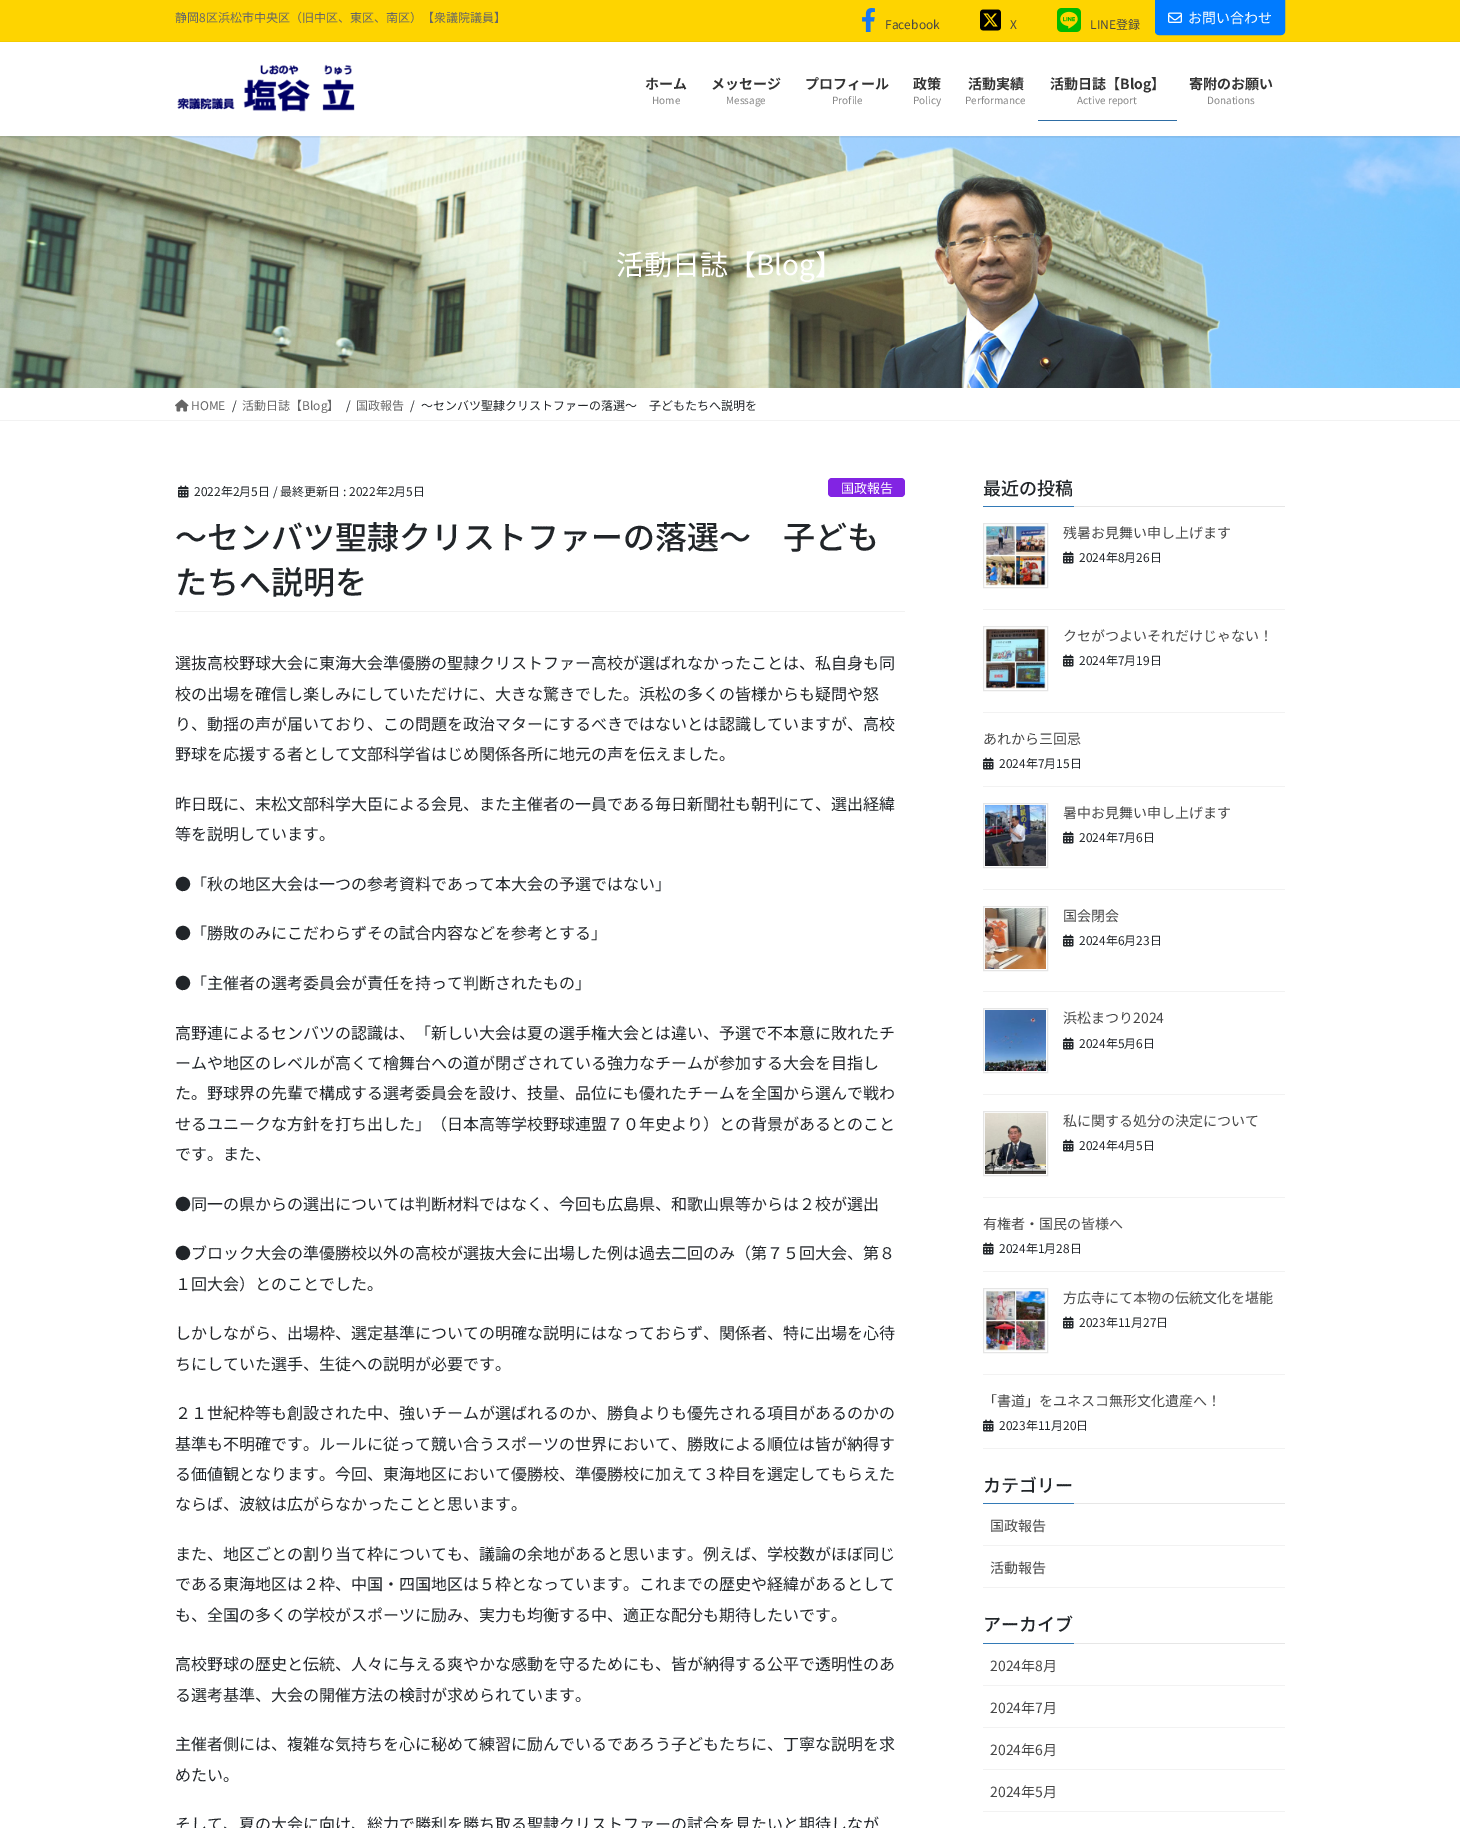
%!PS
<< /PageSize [1460 1828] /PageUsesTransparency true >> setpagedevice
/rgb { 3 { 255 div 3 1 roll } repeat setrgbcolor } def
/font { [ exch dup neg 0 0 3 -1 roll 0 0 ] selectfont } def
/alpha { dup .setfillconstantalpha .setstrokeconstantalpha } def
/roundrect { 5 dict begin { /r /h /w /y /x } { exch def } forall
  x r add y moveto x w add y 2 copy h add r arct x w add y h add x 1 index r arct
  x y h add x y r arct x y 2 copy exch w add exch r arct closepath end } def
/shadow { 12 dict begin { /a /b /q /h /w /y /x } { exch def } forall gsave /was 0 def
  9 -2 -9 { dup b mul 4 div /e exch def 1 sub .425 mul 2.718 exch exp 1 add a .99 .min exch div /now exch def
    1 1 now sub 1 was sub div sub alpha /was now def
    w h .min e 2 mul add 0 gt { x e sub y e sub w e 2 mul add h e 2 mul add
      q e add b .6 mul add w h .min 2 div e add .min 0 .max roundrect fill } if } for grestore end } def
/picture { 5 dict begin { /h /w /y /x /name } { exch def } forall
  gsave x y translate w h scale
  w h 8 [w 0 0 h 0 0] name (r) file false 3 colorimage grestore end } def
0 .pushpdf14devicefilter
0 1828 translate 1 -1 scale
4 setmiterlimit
255 255 255 rgb
0 0 1460 1828 rectfill
(img/6.rgb) 0 136 1460 252 picture
gsave
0 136 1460 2 rectclip
0 0 0 rgb
0 -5 1460 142 0 1.5 0.1 shadow
grestore
254 212 0 rgb
0 0 1460 41 rectfill
244 204 0 rgb
0 41 1460 1 rectfill
(img/1.rgb) 862 8 13 24 picture
(img/2.rgb) 980 9 21 22 picture
(img/3.rgb) 1057 8 24 24 picture
0 123 255 rgb
1155.5 0.5 moveto 1284.5 0.5 lineto 1284.5 31 lineto 1284.5 33 1283 34.5 1281 34.5 curveto 1159 34.5 lineto 1157 34.5 1155.5 33 1155.5 31 curveto closepath gsave fill grestore
stroke
(img/4.rgb) 1168 12 14 11 picture
(img/5.rgb) 177 64 178 48 picture
46 109 164 rgb
1038 120 139 1 rectfill
242 242 242 rgb
0 420 1460 1 rectfill
(img/7.rgb) 175 399 14 13 picture
175 611 730 1 rectfill
(img/8.rgb) 178 485 11 13 picture
130 36 227 rgb
828 478 77 19 4 roundrect fill
[
  [1074 506 211 1 230 230 230]
  [983 506 91 1 51 122 183]
  [983 609 302 1 242 242 242]
] { aload pop rgb rectfill } forall
229 229 229 rgb
983.5 523.5 64 64 rectstroke
(img/9.rgb) 985 525 61 61 picture
(img/8.rgb) 1063 551 11 13 picture
242 242 242 rgb
983 712 302 1 rectfill
229 229 229 rgb
983.5 626.5 64 64 rectstroke
(img/10.rgb) 985 628 61 61 picture
(img/8.rgb) 1063 654 11 13 picture
242 242 242 rgb
983 786 302 1 rectfill
(img/8.rgb) 983 757 11 13 picture
983 889 302 1 rectfill
229 229 229 rgb
983.5 803.5 64 64 rectstroke
(img/11.rgb) 985 805 61 61 picture
(img/8.rgb) 1063 831 11 13 picture
242 242 242 rgb
983 991 302 1 rectfill
229 229 229 rgb
983.5 906.5 64 64 rectstroke
(img/12.rgb) 985 908 61 61 picture
(img/8.rgb) 1063 934 11 13 picture
242 242 242 rgb
983 1094 302 1 rectfill
229 229 229 rgb
983.5 1008.5 64 64 rectstroke
(img/13.rgb) 985 1010 61 61 picture
(img/8.rgb) 1063 1037 11 13 picture
242 242 242 rgb
983 1197 302 1 rectfill
229 229 229 rgb
983.5 1111.5 64 64 rectstroke
(img/14.rgb) 985 1113 61 61 picture
(img/8.rgb) 1063 1139 11 13 picture
242 242 242 rgb
983 1271 302 1 rectfill
(img/8.rgb) 983 1242 11 13 picture
983 1374 302 1 rectfill
229 229 229 rgb
983.5 1288.5 64 64 rectstroke
(img/15.rgb) 985 1290 61 61 picture
(img/8.rgb) 1063 1316 11 13 picture
242 242 242 rgb
983 1448 302 1 rectfill
(img/8.rgb) 983 1419 11 13 picture
[
  [1074 1503 211 1 230 230 230]
  [983 1503 91 1 51 122 183]
  [983 1545 302 1 242 242 242]
  [983 1587 302 1 242 242 242]
  [1074 1643 211 1 230 230 230]
  [983 1643 91 1 51 122 183]
  [983 1685 302 1 242 242 242]
  [983 1727 302 1 242 242 242]
  [983 1769 302 1 242 242 242]
  [983 1811 302 1 242 242 242]
] { aload pop rgb rectfill } forall
/NotoSansJP-Regular 12 font
102 102 102 rgb
175 22 moveto (静岡8区浜松市中央区（旧中区、東区、南区）【衆議院議員】) show
70 70 70 rgb
[
  [(Facebook) 885 29]
  [(X) 1010 29]
  [(LINE登録) 1090 29]
] { aload pop moveto show } forall
/NotoSansJP-Regular 14 font
255 255 255 rgb
1188 23 moveto (お問い合わせ) show
/NotoSansJP-Bold 14 font
51 51 51 rgb
645 89 moveto (ホーム) show
/NotoSansJP-Regular 10 font
133 133 133 rgb
652 104 moveto (Home) show
/NotoSansJP-Bold 14 font
51 51 51 rgb
711 89 moveto (メッセージ) show
/NotoSansJP-Regular 10 font
133 133 133 rgb
726 104 moveto (Message) show
/NotoSansJP-Bold 14 font
51 51 51 rgb
805 89 moveto (プロフィール) show
/NotoSansJP-Regular 10 font
133 133 133 rgb
832 104 moveto (Profile) show
/NotoSansJP-Bold 14 font
51 51 51 rgb
913 89 moveto (政策) show
/NotoSansJP-Regular 10 font
133 133 133 rgb
913 104 moveto (Policy) show
/NotoSansJP-Bold 14 font
51 51 51 rgb
968 89 moveto (活動実績) show
/NotoSansJP-Regular 10 font
133 133 133 rgb
965 104 moveto (Performance) show
/NotoSansJP-Bold 14 font
51 51 51 rgb
1050 89 moveto (活動日誌【Blog】) show
/NotoSansJP-Regular 10 font
133 133 133 rgb
1077 104 moveto (Active report) show
/NotoSansJP-Bold 14 font
51 51 51 rgb
1189 89 moveto (寄附のお願い) show
/NotoSansJP-Regular 10 font
133 133 133 rgb
1207 104 moveto (Donations) show
/NotoSansJP-Regular 28 font
255 255 255 rgb
616 275 moveto (活動日誌【Blog】) show
/NotoSansJP-Regular 12 font
102 102 102 rgb
191 410 moveto (HOME) show
33 37 41 rgb
232 410 moveto (/) show
102 102 102 rgb
242 410 moveto (活動日誌【Blog】) show
33 37 41 rgb
346 410 moveto (/) show
102 102 102 rgb
356 410 moveto (国政報告) show
33 37 41 rgb
[
  [(/) 410 410]
  [(～センバツ聖隷クリストファーの落選～　子どもたちへ説明を) 421 410]
  [(2022年2月5日) 194 496]
  [(/ 最終更新日 : 2022年2月5日) 273 496]
] { aload pop moveto show } forall
/NotoSansJP-Regular 13 font
255 255 255 rgb
841 493 moveto (国政報告) show
/NotoSansJP-Medium 32 font
33 37 41 rgb
175 549 moveto (～センバツ聖隷クリストファーの落選～　子ども) show
175 594 moveto (たちへ説明を) show
/NotoSansJP-Regular 16 font
[
  [(選抜高校野球大会に東海大会準優勝の聖隷クリストファー高校が選ばれなかったことは、私自身も同) 175 669]
  [(校の出場を確信し楽しみにしていただけに、大きな驚きでした。浜松の多くの皆様からも疑問や怒) 175 700]
  [(り、動揺の声が届いており、この問題を政治マターにするべきではないとは認識していますが、高校) 175 730]
  [(野球を応援する者として文部科学省はじめ関係各所に地元の声を伝えました。) 175 760]
  [(昨日既に、末松文部科学大臣による会見、また主催者の一員である毎日新聞社も朝刊にて、選出経緯) 175 810]
  [(等を説明しています。) 175 840]
  [(●「秋の地区大会は一つの参考資料であって本大会の予選ではない」) 175 890]
  [(●「勝敗のみにこだわらずその試合内容などを参考とする」) 175 939]
  [(●「主催者の選考委員会が責任を持って判断されたもの」) 175 989]
  [(高野連によるセンバツの認識は、「新しい大会は夏の選手権大会とは違い、予選で不本意に敗れたチ) 175 1039]
  [(ームや地区のレベルが高くて檜舞台への道が閉ざされている強力なチームが参加する大会を目指し) 175 1069]
  [(た。野球界の先輩で構成する選考委員会を設け、技量、品位にも優れたチームを全国から選んで戦わ) 175 1099]
  [(せるユニークな方針を打ち出した」（日本高等学校野球連盟７０年史より）との背景があるとのこと) 175 1130]
  [(です。また、) 175 1160]
  [(●同一の県からの選出については判断材料ではなく、今回も広島県、和歌山県等からは２校が選出) 175 1210]
  [(●ブロック大会の準優勝校以外の高校が選抜大会に出場した例は過去二回のみ（第７５回大会、第８) 175 1259]
  [(１回大会）とのことでした。) 175 1290]
  [(しかしながら、出場枠、選定基準についての明確な説明にはなっておらず、関係者、特に出場を心待) 175 1339]
  [(ちにしていた選手、生徒への説明が必要です。) 175 1370]
  [(２１世紀枠等も創設された中、強いチームが選ばれるのか、勝負よりも優先される項目があるのかの) 175 1419]
  [(基準も不明確です。ルールに従って競い合うスポーツの世界において、勝敗による順位は皆が納得す) 175 1450]
  [(る価値観となります。今回、東海地区において優勝校、準優勝校に加えて３枠目を選定してもらえた) 175 1480]
  [(ならば、波紋は広がらなかったことと思います。) 175 1510]
  [(また、地区ごとの割り当て枠についても、議論の余地があると思います。例えば、学校数がほぼ同じ) 175 1560]
  [(である東海地区は２枠、中国・四国地区は５枠となっています。これまでの歴史や経緯があるとして) 175 1590]
  [(も、全国の多くの学校がスポーツに励み、実力も均衡する中、適正な配分も期待したいです。) 175 1621]
  [(高校野球の歴史と伝統、人々に与える爽やかな感動を守るためにも、皆が納得する公平で透明性のあ) 175 1670]
  [(る選考基準、大会の開催方法の検討が求められています。) 175 1701]
  [(主催者側には、複雑な気持ちを心に秘めて練習に励んでいるであろう子どもたちに、丁寧な説明を求) 175 1750]
  [(めたい。) 175 1781]
  [(そして、夏の大会に向け、総力で勝利を勝ち取る聖隷クリストファーの試合を見たいと期待しなが) 175 1830]
] { aload pop moveto show } forall
/NotoSansJP-Medium 18 font
983 495 moveto (最近の投稿) show
/NotoSansJP-Regular 14 font
70 70 70 rgb
1063 538 moveto (残暑お見舞い申し上げます) show
/NotoSansJP-Regular 12 font
33 37 41 rgb
1079 562 moveto (2024年8月26日) show
/NotoSansJP-Regular 14 font
70 70 70 rgb
1063 641 moveto (クセがつよいそれだけじゃない！) show
/NotoSansJP-Regular 12 font
33 37 41 rgb
1079 665 moveto (2024年7月19日) show
/NotoSansJP-Regular 14 font
70 70 70 rgb
983 744 moveto (あれから三回忌) show
/NotoSansJP-Regular 12 font
33 37 41 rgb
999 768 moveto (2024年7月15日) show
/NotoSansJP-Regular 14 font
70 70 70 rgb
1063 818 moveto (暑中お見舞い申し上げます) show
/NotoSansJP-Regular 12 font
33 37 41 rgb
1079 842 moveto (2024年7月6日) show
/NotoSansJP-Regular 14 font
70 70 70 rgb
1063 921 moveto (国会閉会) show
/NotoSansJP-Regular 12 font
33 37 41 rgb
1079 945 moveto (2024年6月23日) show
/NotoSansJP-Regular 14 font
70 70 70 rgb
1063 1023 moveto (浜松まつり2024) show
/NotoSansJP-Regular 12 font
33 37 41 rgb
1079 1048 moveto (2024年5月6日) show
/NotoSansJP-Regular 14 font
70 70 70 rgb
1063 1126 moveto (私に関する処分の決定について) show
/NotoSansJP-Regular 12 font
33 37 41 rgb
1079 1150 moveto (2024年4月5日) show
/NotoSansJP-Regular 14 font
70 70 70 rgb
983 1229 moveto (有権者・国民の皆様へ) show
/NotoSansJP-Regular 12 font
33 37 41 rgb
999 1253 moveto (2024年1月28日) show
/NotoSansJP-Regular 14 font
70 70 70 rgb
1063 1303 moveto (方広寺にて本物の伝統文化を堪能) show
/NotoSansJP-Regular 12 font
33 37 41 rgb
1079 1327 moveto (2023年11月27日) show
/NotoSansJP-Regular 14 font
70 70 70 rgb
983 1406 moveto (「書道」をユネスコ無形文化遺産へ！) show
/NotoSansJP-Regular 12 font
33 37 41 rgb
999 1430 moveto (2023年11月20日) show
/NotoSansJP-Medium 18 font
983 1492 moveto (カテゴリー) show
/NotoSansJP-Regular 14 font
70 70 70 rgb
990 1531 moveto (国政報告) show
990 1573 moveto (活動報告) show
/NotoSansJP-Medium 18 font
33 37 41 rgb
983 1631 moveto (アーカイブ) show
/NotoSansJP-Regular 14 font
70 70 70 rgb
[
  [(2024年8月) 990 1671]
  [(2024年7月) 990 1713]
  [(2024年6月) 990 1755]
  [(2024年5月) 990 1797]
] { aload pop moveto show } forall
.poppdf14devicefilter showpage
